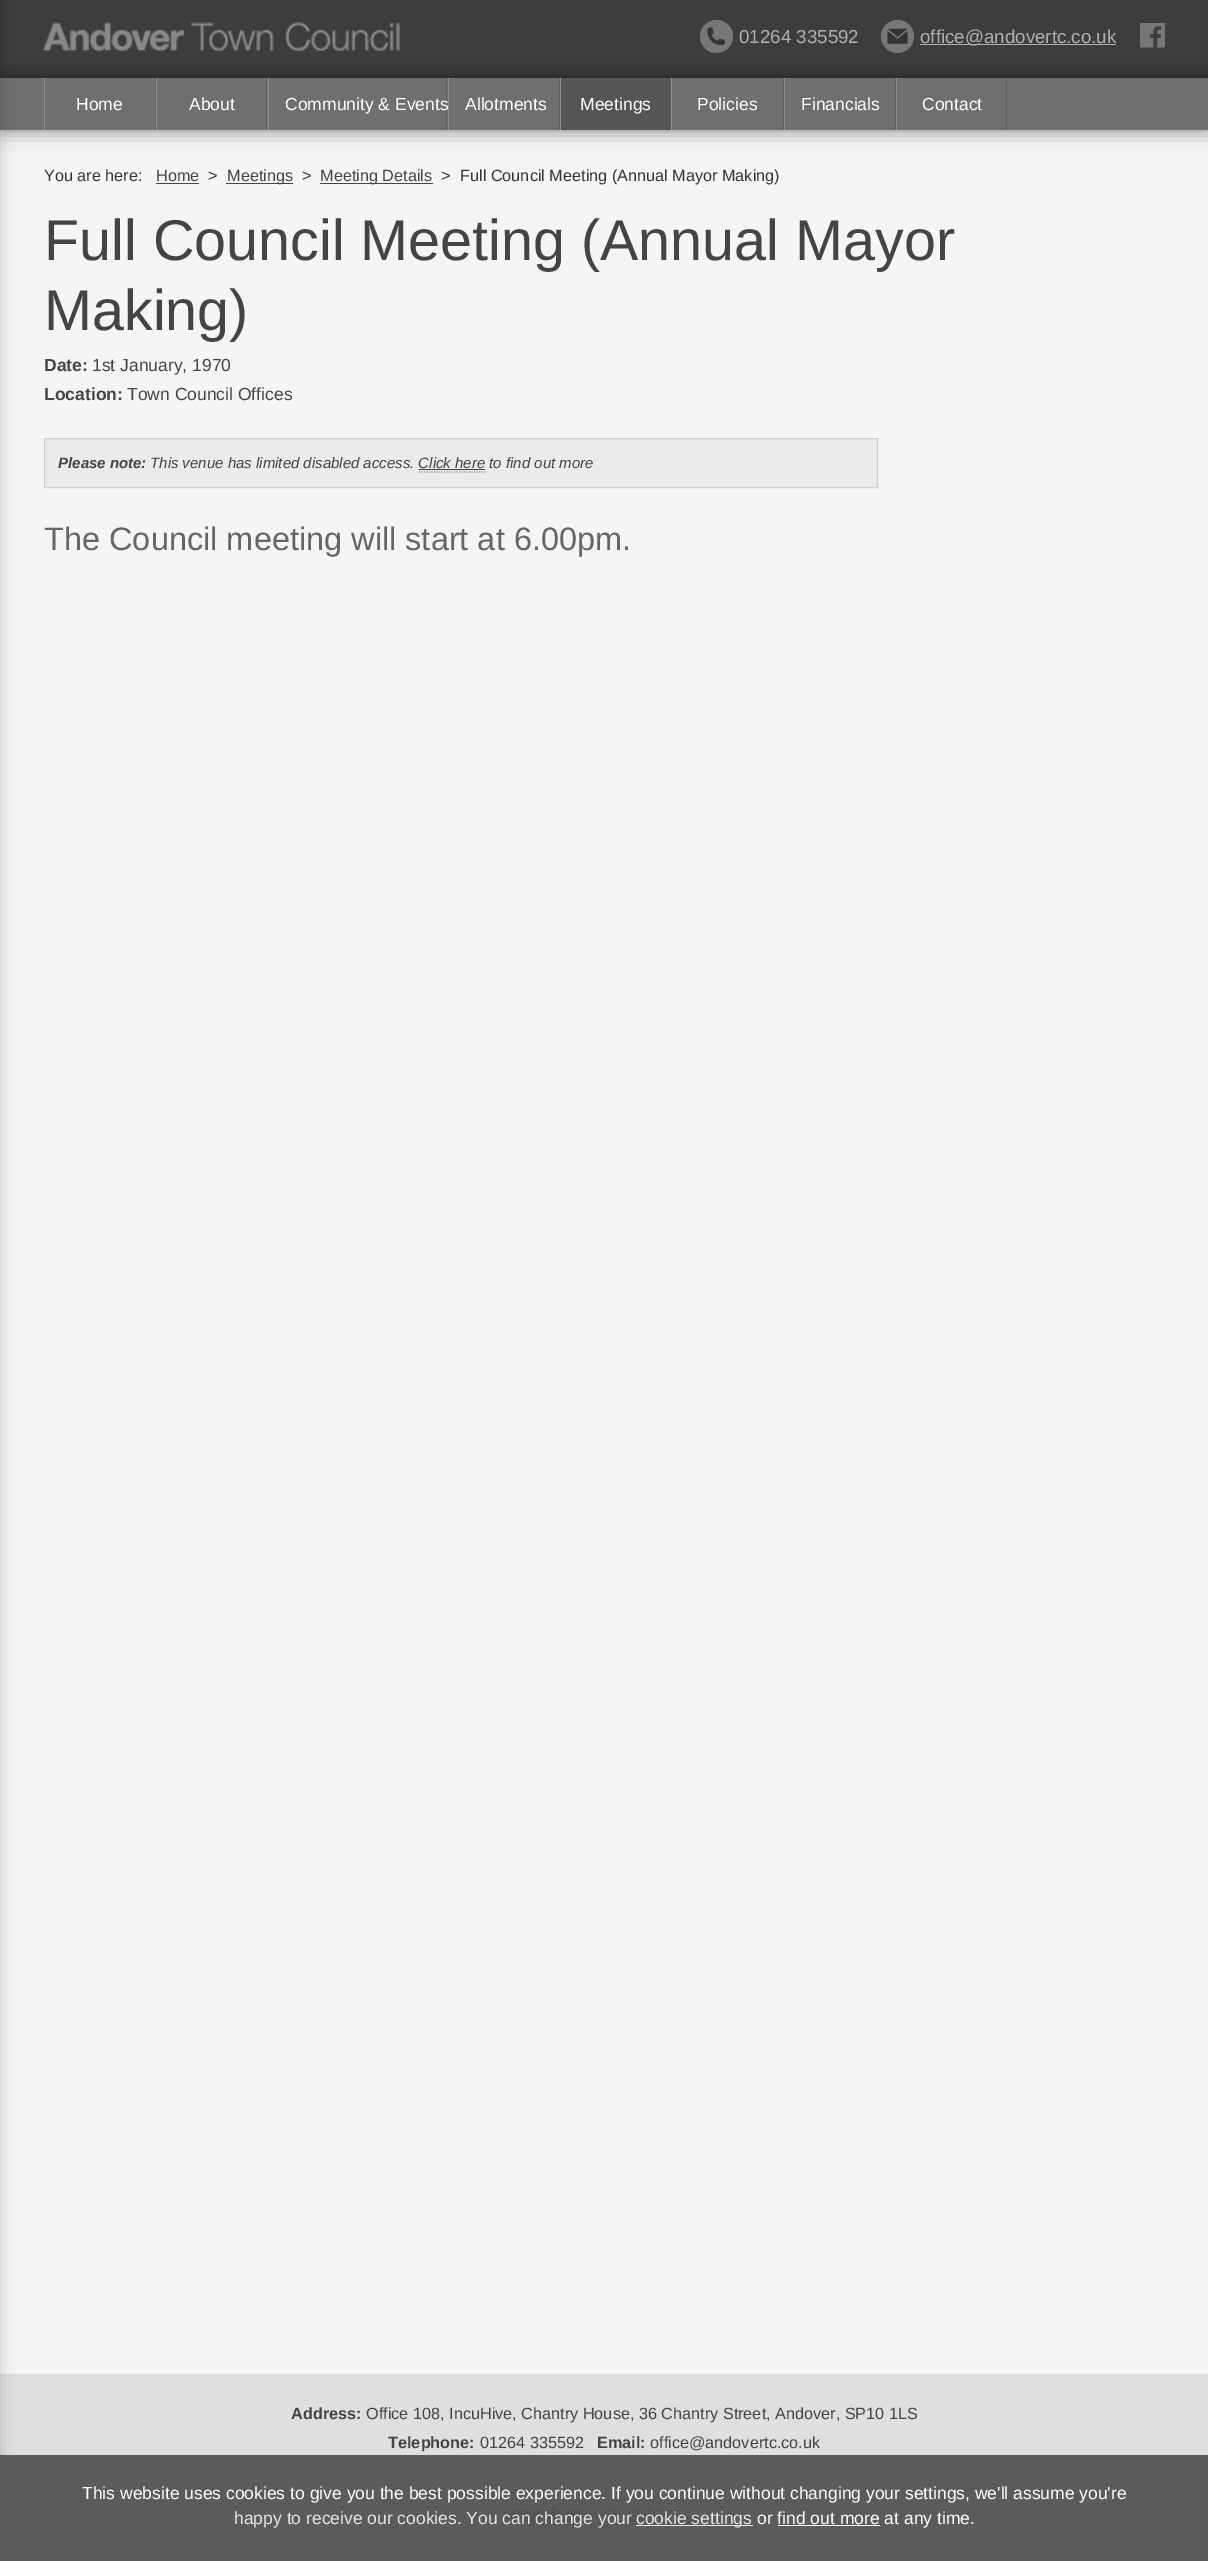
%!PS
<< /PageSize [1208 2561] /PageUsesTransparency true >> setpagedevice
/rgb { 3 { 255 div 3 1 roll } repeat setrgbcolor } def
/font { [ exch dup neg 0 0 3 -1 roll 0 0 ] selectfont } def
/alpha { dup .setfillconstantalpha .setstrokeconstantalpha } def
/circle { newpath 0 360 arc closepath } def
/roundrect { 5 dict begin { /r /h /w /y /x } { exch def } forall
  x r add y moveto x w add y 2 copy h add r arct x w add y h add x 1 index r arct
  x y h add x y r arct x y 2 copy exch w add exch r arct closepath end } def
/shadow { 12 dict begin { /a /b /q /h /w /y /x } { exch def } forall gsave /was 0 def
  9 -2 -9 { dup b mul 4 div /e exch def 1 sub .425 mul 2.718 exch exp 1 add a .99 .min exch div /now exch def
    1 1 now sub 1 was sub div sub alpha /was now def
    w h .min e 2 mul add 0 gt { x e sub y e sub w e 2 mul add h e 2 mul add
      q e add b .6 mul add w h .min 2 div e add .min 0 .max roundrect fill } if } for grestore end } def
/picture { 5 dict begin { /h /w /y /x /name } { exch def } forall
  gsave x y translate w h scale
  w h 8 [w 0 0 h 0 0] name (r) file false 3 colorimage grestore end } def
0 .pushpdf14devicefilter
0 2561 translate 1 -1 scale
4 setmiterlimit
245 245 245 rgb
0 0 1208 2561 rectfill
61 61 61 rgb
0 0 1208 78 rectfill
(img/1.rgb) 43 22 357 30 picture
119 119 119 rgb
716.5 36.5 16.5 circle fill
897.5 36.5 16.5 circle fill
0 0 0 rgb
0 78 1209 52 0 9.5 0.5 shadow
111 111 111 rgb
0 78 1208 52 rectfill
223 223 223 rgb
0 2374 1208 187 rectfill
0 0 0 rgb
-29 0 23 2561 0 9.5 0.35 shadow
(img/2.rgb) 707 27 18 18 picture
(img/3.rgb) 887 28 21 16 picture
175 175 175 rgb
920 44 196 1 rectfill
(img/4.rgb) 1140 23 25 25 picture
[
  [155 78 1 52 95 95 95]
  [44 78 1 52 143 143 143]
  [266 78 1 52 95 95 95]
  [156 78 1 52 143 143 143]
  [446 78 1 52 95 95 95]
  [268 78 1 52 143 143 143]
  [559 78 1 52 95 95 95]
  [561 78 109 52 85 85 85]
  [670 78 1 52 95 95 95]
  [560 78 1 52 143 143 143]
  [783 78 1 52 95 95 95]
  [671 78 1 52 143 143 143]
  [895 78 1 52 95 95 95]
  [784 78 1 52 143 143 143]
  [1006 78 1 52 95 95 95]
  [896 78 1 52 143 143 143]
  [156 183 43 1 68 68 68]
  [226 183 67 1 68 68 68]
  [320 183 113 1 68 68 68]
] { aload pop rgb rectfill } forall
235 235 235 rgb
44.5 438.5 moveto 877.5 438.5 lineto 877.5 487.5 lineto 44.5 487.5 lineto closepath gsave fill grestore
207 207 207 rgb
stroke
68 68 68 rgb
419 469 66 1 rectfill
153 153 153 rgb
1.2 setlinewidth
[1.25 1.25] 0 setdash
419 472 moveto 485 472 lineto stroke
(img/5.rgb) 510 2505 189 22 picture
0.85 alpha
68 68 68 rgb
0 2455 1208 106 rectfill
255 255 255 rgb
636 2525 117 1 rectfill
/LiberationSans-Regular 18.75 font
1 alpha
175 175 175 rgb
739 43 moveto (01264 335592) show
920 43 moveto (office@andovertc.co.uk) show
/LiberationSans-Regular 17.5 font
255 255 255 rgb
[
  [(Home) 76 110]
  [(About) 189 110]
  [(Community & Events) 285 110]
] { aload pop moveto show } forall
143 143 143 rgb
448 78 1 52 rectfill
255 255 255 rgb
[
  [(Allotments) 465 110]
  [(Meetings) 580 110]
  [(Policies) 697 110]
  [(Financials) 801 110]
  [(Contact) 922 110]
] { aload pop moveto show } forall
/LiberationSans-Regular 16.25 font
51 51 51 rgb
44 181 moveto (You are here:) show
68 68 68 rgb
156 181 moveto (Home) show
51 51 51 rgb
208 181 moveto (>) show
68 68 68 rgb
227 181 moveto (Meetings) show
51 51 51 rgb
302 181 moveto (>) show
68 68 68 rgb
320 181 moveto (Meeting Details) show
51 51 51 rgb
441 181 moveto (>) show
460 181 moveto (Full Council Meeting \(Annual Mayor Making\)) show
/LiberationSans-Regular 57.5 font
68 68 68 rgb
44 260 moveto (Full Council Meeting \(Annual Mayor) show
44 330 moveto (Making\)) show
/LiberationSans-Bold 17.5 font
44 371 moveto (Date:) show
/LiberationSans-Regular 17.5 font
92 371 moveto (1st January, 1970) show
/LiberationSans-Bold 17.5 font
44 400 moveto (Location:) show
/LiberationSans-Regular 17.5 font
127 400 moveto (Town Council Offices) show
/LiberationSans-BoldItalic 15 font
58 468 moveto (Please note:) show
/LiberationSans-Italic 15 font
150 468 moveto (This venue has limited disabled access. Click here to find out more) show
/LiberationSans-Regular 32.5 font
102 102 102 rgb
44 550 moveto (The Council meeting will start at 6.00pm.) show
/LiberationSans-Bold 16.25 font
68 68 68 rgb
291 2419 moveto (Address:) show
/LiberationSans-Regular 16.25 font
366 2419 moveto (Office 108, IncuHive, Chantry House, 36 Chantry Street, Andover, SP10 1LS) show
/LiberationSans-Bold 16.25 font
388 2448 moveto (Telephone:) show
/LiberationSans-Regular 16.25 font
480 2448 moveto (01264 335592) show
/LiberationSans-Bold 16.25 font
597 2448 moveto (Email:) show
/LiberationSans-Regular 16.25 font
650 2448 moveto (office@andovertc.co.uk) show
/LiberationSans-Regular 17.5 font
255 255 255 rgb
82 2499 moveto (This website uses cookies to give you the best possible experience. If you continue without changing your settings, we'll assume you're) show
230 230 230 rgb
234 2524 moveto (happy to receive our cookies. You can change your) show
636 2524 moveto (cookie settings) show
255 255 255 rgb
757 2524 moveto (or find out more at any time.) show
250 250 250 rgb
778 2525 102 1 rectfill
.poppdf14devicefilter showpage
